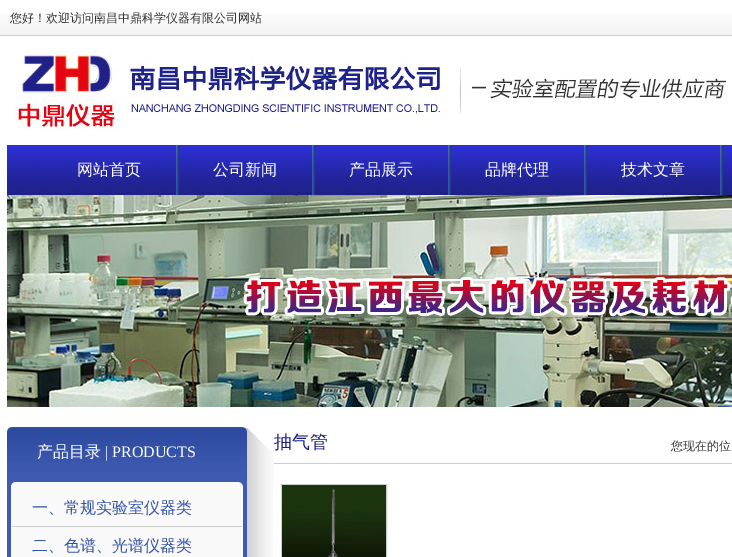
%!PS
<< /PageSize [732 557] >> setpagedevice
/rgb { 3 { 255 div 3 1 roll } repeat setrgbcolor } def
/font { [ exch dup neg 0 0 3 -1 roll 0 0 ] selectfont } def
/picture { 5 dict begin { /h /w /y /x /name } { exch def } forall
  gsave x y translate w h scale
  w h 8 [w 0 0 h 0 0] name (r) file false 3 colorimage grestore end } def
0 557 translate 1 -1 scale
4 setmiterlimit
255 255 255 rgb
0 0 732 557 rectfill
(img/1.rgb) 0 14 732 22 picture
(img/2.rgb) 15 51 712 79 picture
(img/3.rgb) 7 145 725 50 picture
(img/4.rgb) 176 145 3 50 picture
(img/5.rgb) 312 145 3 50 picture
(img/5.rgb) 448 145 3 50 picture
(img/5.rgb) 584 145 3 50 picture
(img/5.rgb) 720 145 3 50 picture
(img/6.rgb) 7 195 725 212 picture
(img/7.rgb) 7 427 267 62 picture
(img/8.rgb) 7 489 266 68 picture
204 204 204 rgb
12 526 230 1 rectfill
274 463 458 1 rectfill
281.5 484.5 105 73 rectstroke
(img/9.rgb) 282 485 104 72 picture
/WenQuanYiZenHei-Medium 12 font
51 51 51 rgb
10 22 moveto (您好！欢迎访问南昌中鼎科学仪器有限公司网站) show
/WenQuanYiZenHei-Medium 16 font
255 255 255 rgb
[
  [(网站首页) 77 175]
  [(公司新闻) 213 175]
  [(产品展示) 349 175]
  [(品牌代理) 485 175]
  [(技术文章) 621 175]
  [(产品目录) 37 457]
] { aload pop moveto show } forall
/LiberationSerif-Regular 16 font
105 457 moveto (| PRODUCTS) show
/WenQuanYiZenHei-Medium 16 font
52 82 168 rgb
32 513 moveto (一、常规实验室仪器类) show
32 551 moveto (二、色谱、光谱仪器类) show
/WenQuanYiZenHei-Medium 18 font
26 27 132 rgb
274 448 moveto (抽气管) show
/WenQuanYiZenHei-Medium 12 font
51 51 51 rgb
671 450 moveto (您现在的位) show
showpage
